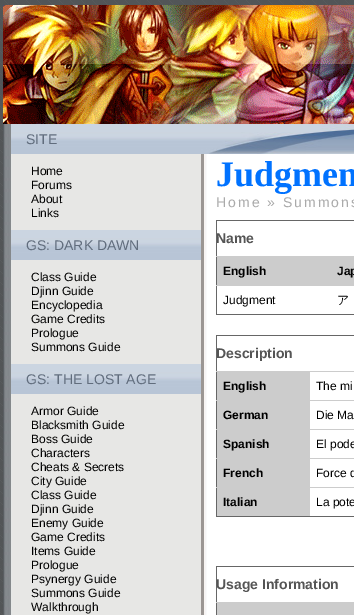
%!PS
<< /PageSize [354 615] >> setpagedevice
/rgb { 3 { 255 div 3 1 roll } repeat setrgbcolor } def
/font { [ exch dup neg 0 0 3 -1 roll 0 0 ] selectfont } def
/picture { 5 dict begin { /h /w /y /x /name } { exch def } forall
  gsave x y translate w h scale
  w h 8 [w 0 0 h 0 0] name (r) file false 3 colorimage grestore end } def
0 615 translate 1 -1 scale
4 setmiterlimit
255 255 255 rgb
0 0 354 615 rectfill
(img/1.rgb) 0 0 354 615 picture
207 154 147 461 rectfill
(img/2.rgb) 3 124 204 491 picture
(img/3.rgb) 3 5 351 119 picture
(img/4.rgb) 11 124 190 30 picture
(img/4.rgb) 11 230 190 30 picture
(img/4.rgb) 11 364 190 30 picture
(img/5.rgb) 201 124 153 30 picture
[
  [216 220 138 1 102 102 102]
  [216 314 138 1 102 102 102]
  [216 220 1 95 102 102 102]
  [217 257 137 28 204 204 204]
  [216 256 138 1 204 204 204]
  [216 285 138 1 204 204 204]
  [216 335 138 1 102 102 102]
  [216 516 138 1 102 102 102]
  [216 335 1 182 102 102 102]
  [216 371 138 1 204 204 204]
  [217 372 93 28 204 204 204]
  [216 400 138 1 204 204 204]
  [217 401 93 28 204 204 204]
  [216 429 138 1 204 204 204]
  [217 430 93 28 204 204 204]
  [216 458 138 1 204 204 204]
  [217 459 93 28 204 204 204]
  [216 487 138 1 204 204 204]
  [217 488 93 28 204 204 204]
  [216 566 138 1 102 102 102]
  [216 566 1 49 102 102 102]
  [217 603 137 12 204 204 204]
  [216 602 138 1 204 204 204]
] { aload pop rgb rectfill } forall
/LiberationSans-Regular 14 font
97 109 125 rgb
26 144 moveto (SITE) show
/LiberationSans-Regular 12 font
0 0 0 rgb
[
  [(Home) 31 175]
  [(Forums) 31 189]
  [(About) 31 203]
  [(Links) 31 217]
] { aload pop moveto show } forall
/LiberationSans-Regular 14 font
97 109 125 rgb
26 250 moveto (GS: DARK DAWN) show
/LiberationSans-Regular 12 font
0 0 0 rgb
[
  [(Class Guide) 31 281]
  [(Djinn Guide) 31 295]
  [(Encyclopedia) 31 309]
  [(Game Credits) 31 323]
  [(Prologue) 31 337]
  [(Summons Guide) 31 351]
] { aload pop moveto show } forall
/LiberationSans-Regular 14 font
97 109 125 rgb
26 384 moveto (GS: THE LOST AGE) show
/LiberationSans-Regular 12 font
0 0 0 rgb
[
  [(Armor Guide) 31 415]
  [(Blacksmith Guide) 31 429]
  [(Boss Guide) 31 443]
  [(Characters) 31 457]
  [(Cheats & Secrets) 31 471]
  [(City Guide) 31 485]
  [(Class Guide) 31 499]
  [(Djinn Guide) 31 513]
  [(Enemy Guide) 31 527]
  [(Game Credits) 31 541]
  [(Items Guide) 31 555]
  [(Prologue) 31 569]
  [(Psynergy Guide) 31 583]
  [(Summons Guide) 31 597]
  [(Walkthrough) 31 611]
] { aload pop moveto show } forall
/LiberationSerif-Bold 36 font
0 114 255 rgb
216 186 moveto (Judgmen) show
/LiberationSans-Regular 14 font
170 170 170 rgb
216 207 moveto 2 0 (Home » Summons) ashow
/LiberationSans-Bold 14 font
85 85 85 rgb
216 243 moveto (Name) show
/LiberationSans-Bold 12 font
0 0 0 rgb
223 275 moveto (English) show
337 275 moveto (Jap) show
/LiberationSans-Regular 12 font
223 304 moveto (Judgment) show
/WenQuanYiZenHei-Medium 12 font
337 304 moveto (ア) show
/LiberationSans-Bold 14 font
85 85 85 rgb
216 358 moveto (Description) show
/LiberationSans-Bold 12 font
0 0 0 rgb
223 390 moveto (English) show
/LiberationSans-Regular 12 font
316 390 moveto (The mi) show
/LiberationSans-Bold 12 font
223 419 moveto (German) show
/LiberationSans-Regular 12 font
316 419 moveto (Die Ma) show
/LiberationSans-Bold 12 font
223 448 moveto (Spanish) show
/LiberationSans-Regular 12 font
316 448 moveto (El pode) show
/LiberationSans-Bold 12 font
223 477 moveto (French) show
/LiberationSans-Regular 12 font
316 477 moveto (Force d) show
/LiberationSans-Bold 12 font
223 506 moveto (Italian) show
/LiberationSans-Regular 12 font
316 506 moveto (La pote) show
/LiberationSans-Bold 14 font
85 85 85 rgb
216 589 moveto (Usage Information) show
showpage
